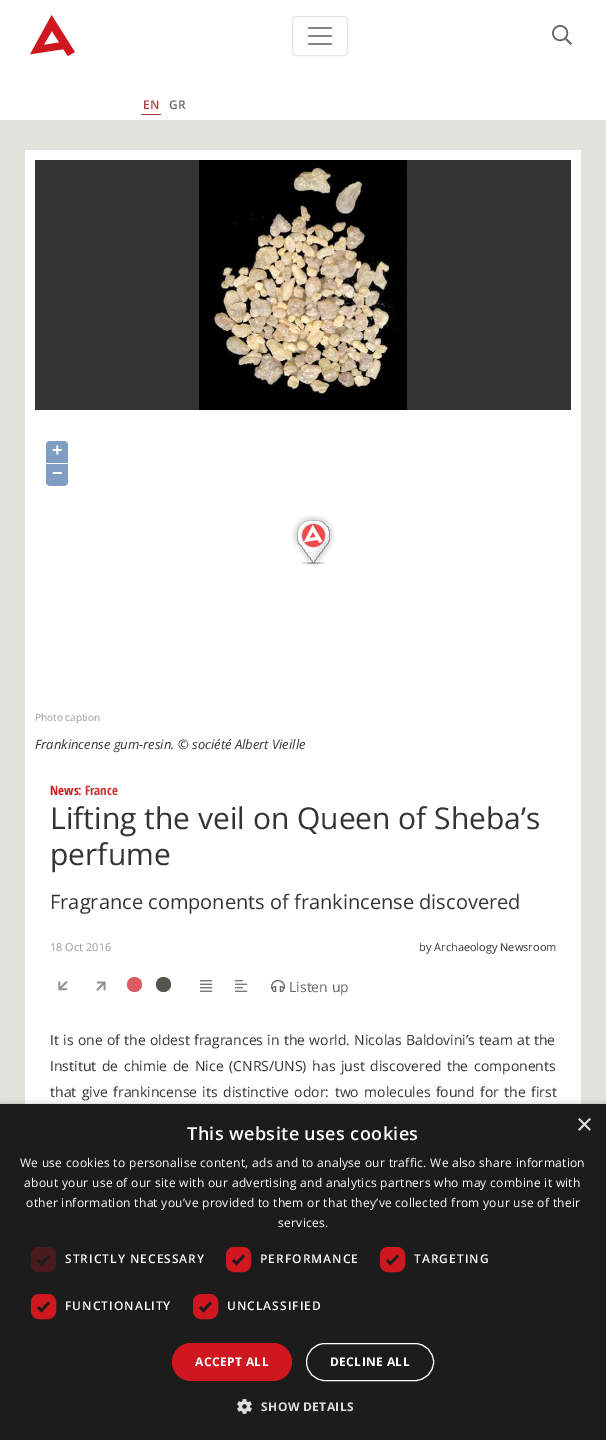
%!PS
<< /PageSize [606 1440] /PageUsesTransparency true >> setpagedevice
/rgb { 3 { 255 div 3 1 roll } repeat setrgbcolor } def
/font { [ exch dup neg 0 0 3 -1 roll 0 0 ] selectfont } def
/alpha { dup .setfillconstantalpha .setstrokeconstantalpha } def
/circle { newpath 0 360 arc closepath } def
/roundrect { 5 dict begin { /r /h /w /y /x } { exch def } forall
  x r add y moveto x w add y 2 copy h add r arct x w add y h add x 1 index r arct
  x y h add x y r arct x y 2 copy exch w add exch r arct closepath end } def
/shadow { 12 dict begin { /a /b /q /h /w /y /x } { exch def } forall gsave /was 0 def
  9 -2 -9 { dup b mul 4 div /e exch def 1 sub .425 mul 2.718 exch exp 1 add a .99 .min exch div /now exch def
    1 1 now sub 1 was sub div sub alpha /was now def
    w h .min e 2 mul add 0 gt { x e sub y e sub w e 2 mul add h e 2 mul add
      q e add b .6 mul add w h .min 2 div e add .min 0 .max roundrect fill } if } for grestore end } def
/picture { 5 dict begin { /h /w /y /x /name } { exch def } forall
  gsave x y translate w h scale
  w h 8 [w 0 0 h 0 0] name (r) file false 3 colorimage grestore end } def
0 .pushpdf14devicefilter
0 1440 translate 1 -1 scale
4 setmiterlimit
227 227 222 rgb
0 0 606 1440 rectfill
255 255 255 rgb
0 0 606 120 rectfill
(img/1.rgb) 30 15 45 41 picture
230 230 230 rgb
292.5 16.5 55 39 3.5 roundrect stroke
(img/2.rgb) 308 27 24 18 picture
(img/3.rgb) 552 25 20 20 picture
[
  [141 114 20 1 174 62 66]
  [25 150 556 954 255 255 255]
  [35 160 536 250 51 51 51]
] { aload pop rgb rectfill } forall
(img/4.rgb) 198 160 209 250 picture
128 158 196 rgb
50 441 moveto 64 441 lineto 66 441 68 443 68 445 curveto 68 463 lineto 46 463 lineto 46 445 lineto 46 443 48 441 50 441 curveto closepath fill
46 464 moveto 68 464 lineto 68 482 lineto 68 484 66 486 64 486 curveto 50 486 lineto 48 486 46 484 46 482 curveto closepath fill
(img/5.rgb) 292 515 43 52 picture
(img/6.rgb) 58 981 10 10 picture
(img/7.rgb) 96 981 10 10 picture
221 93 98 rgb
134.5 984.5 7.5 circle fill
87 84 78 rgb
163.5 984.5 7.5 circle fill
(img/8.rgb) 200 980 13 12 picture
(img/9.rgb) 235 980 13 12 picture
(img/10.rgb) 271 979 14 14 picture
0 0 0 rgb
1 1106 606 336 0 4 0.35 shadow
28 28 28 rgb
0 1104 606 336 rectfill
74 27 29 rgb
31 1247 25 25 8 roundrect fill
28 28 28 rgb
2.6 setlinewidth
38 1260 moveto 41.5 1263.5 lineto 49 1255.5 lineto stroke
206 23 31 rgb
227 1248 23 23 7 roundrect gsave fill grestore
2 setlinewidth
stroke
28 28 28 rgb
2.6 setlinewidth
233 1260 moveto 236.5 1263.5 lineto 244 1255.5 lineto stroke
206 23 31 rgb
381 1248 23 23 7 roundrect gsave fill grestore
2 setlinewidth
stroke
28 28 28 rgb
2.6 setlinewidth
387 1260 moveto 390.5 1263.5 lineto 398 1255.5 lineto stroke
206 23 31 rgb
32 1295 23 23 7 roundrect gsave fill grestore
2 setlinewidth
stroke
28 28 28 rgb
2.6 setlinewidth
38 1307 moveto 41.5 1310.5 lineto 49 1302.5 lineto stroke
206 23 31 rgb
194 1295 23 23 7 roundrect gsave fill grestore
2 setlinewidth
stroke
28 28 28 rgb
2.6 setlinewidth
200 1307 moveto 203.5 1310.5 lineto 211 1302.5 lineto stroke
206 23 31 rgb
172 1343 120 38 19 roundrect fill
255 255 255 rgb
1 setlinewidth
306.5 1343.5 127 37 18.5 roundrect stroke
(img/11.rgb) 237 1399 15 15 picture
/OpenSans-SemiBold 12 font
174 62 66 rgb
143 109 moveto (EN) show
102 102 102 rgb
169 109 moveto (GR) show
/LiberationSans-Bold 18 font
255 255 255 rgb
52 456 moveto (+) show
52 479 moveto (−) show
/OpenSans-Regular 10 font
153 153 153 rgb
35 721 moveto (Photo caption) show
/OpenSans-Italic 13 font
51 51 51 rgb
35 749 moveto (Frankincense gum-resin. © société Albert Vieille) show
/OpenSansCondensed-Bold 13 font
206 23 31 rgb
50 795 moveto (News) show
204 51 51 rgb
78 795 moveto (: France) show
/OpenSans-Regular 30 font
51 51 51 rgb
50 829 moveto (Lifting the veil on Queen of Sheba’s) show
50 865 moveto (perfume) show
/OpenSans-Regular 20 font
50 909 moveto (Fragrance components of frankincense discovered) show
/OpenSans-Regular 11 font
153 153 153 rgb
50 951 moveto (18 Oct 2016) show
51 51 51 rgb
419 951 moveto (by Archaeology Newsroom) show
/OpenSans-Regular 14 font
102 102 102 rgb
289 992 moveto (Listen up) show
51 51 51 rgb
50 1045 moveto 0.6 0 32 (It is one of the oldest fragrances in the world. Nicolas Baldovini’s team at the) widthshow
50 1071 moveto 2 0 32 (Institut de chimie de Nice \(CNRS/UNS\) has just discovered the components) widthshow
50 1097 moveto 1.75 0 32 (that give frankincense its distinctive odor: two molecules found for the first) widthshow
/LiberationSans-Regular 29 font
221 221 221 rgb
576 1134 moveto (×) show
/OpenSans-SemiBold 18 font
255 255 255 rgb
187 1140 moveto 0.4 0 (This website uses cookies) ashow
/OpenSans-Regular 12 font
20 1167 moveto 0.3 0 (We use cookies to personalise content, ads and to analyse our traffic. We also share information) ashow
24 1187 moveto 0.3 0 (about your use of our site with our advertising and analytics partners who may combine it with) ashow
26 1207 moveto 0.3 0 (other information that you’ve provided to them or that they’ve collected from your use of their) ashow
278 1227 moveto 0.3 0 (services.) ashow
/OpenSans-SemiBold 12 font
65 1263 moveto 1 0 (STRICTLY NECESSARY) ashow
260 1263 moveto 1 0 (PERFORMANCE) ashow
414 1263 moveto 1 0 (TARGETING) ashow
65 1310 moveto 1 0 (FUNCTIONALITY) ashow
227 1310 moveto 1 0 (UNCLASSIFIED) ashow
/OpenSans-Bold 12 font
195 1366 moveto 0.4 0 (ACCEPT ALL) ashow
330 1366 moveto 0.4 0 (DECLINE ALL) ashow
221 221 221 rgb
261 1411 moveto 0.4 0 (SHOW DETAILS) ashow
.poppdf14devicefilter showpage
